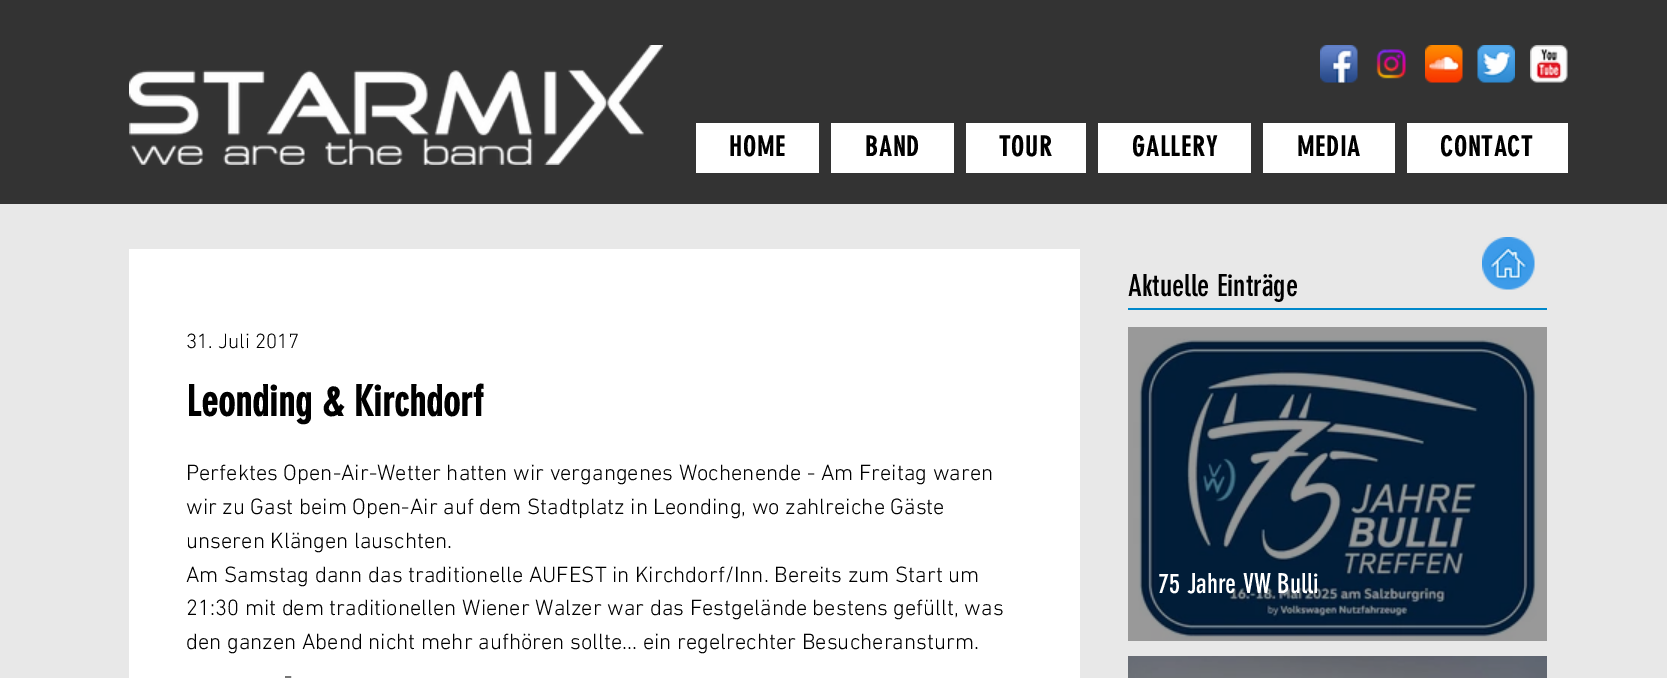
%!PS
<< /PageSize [1667 678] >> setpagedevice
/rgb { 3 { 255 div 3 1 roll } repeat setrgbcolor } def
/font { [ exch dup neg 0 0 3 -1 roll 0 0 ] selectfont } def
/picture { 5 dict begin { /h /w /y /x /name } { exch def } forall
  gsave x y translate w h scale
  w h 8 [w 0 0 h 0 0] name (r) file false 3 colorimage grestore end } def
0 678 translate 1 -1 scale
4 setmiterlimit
232 232 232 rgb
0 0 1667 678 rectfill
51 51 51 rgb
0 0 1667 204 rectfill
(img/1.rgb) 129 45 534 120 picture
(img/2.rgb) 1320 45 38 38 picture
(img/3.rgb) 1376 49 30 30 picture
(img/4.rgb) 1425 45 38 38 picture
(img/5.rgb) 1477 45 38 38 picture
(img/6.rgb) 1530 45 38 38 picture
[
  [696 123 123 50 255 255 255]
  [831 123 123 50 255 255 255]
  [966 123 120 50 255 255 255]
  [1098 123 153 50 255 255 255]
  [1263 123 132 50 255 255 255]
  [1407 123 161 50 255 255 255]
  [129 249 951 429 255 255 255]
] { aload pop rgb rectfill } forall
(img/7.rgb) 1482 237 53 53 picture
0 136 203 rgb
1128 308 419 2 rectfill
(img/8.rgb) 1128 327 419 314 picture
(img/9.rgb) 1128 656 419 22 picture
/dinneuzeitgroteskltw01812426-Bold 27 font
0 0 0 rgb
729 156 moveto 1.25 0 (HOME) ashow
865 156 moveto 1.25 0 (BAND) ashow
999 156 moveto 1.25 0 (TOUR) ashow
1132 156 moveto 1.25 0 (GALLERY) ashow
1297 156 moveto 1.25 0 (MEDIA) ashow
1440 156 moveto 1.25 0 (CONTACT) ashow
/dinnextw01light-Light 21 font
186 348 moveto (31. Juli 2017) show
/dinneuzeitgroteskltw01812426-Bold 42 font
186 416 moveto (Leonding & Kirchdorf) show
/dinnextw01light-Light 22.5 font
[
  [(Perfektes Open-Air-Wetter hatten wir vergangenes Wochenende - Am Freitag waren) 186 480]
  [(wir zu Gast beim Open-Air auf dem Stadtplatz in Leonding, wo zahlreiche Gäste) 186 514]
  [(unseren Klängen lauschten.) 186 548]
  [(Am Samstag dann das traditionelle AUFEST in Kirchdorf/Inn. Bereits zum Start um) 186 582]
  [(21:30 mit dem traditionellen Wiener Walzer war das Festgelände bestens gefüllt, was) 186 615]
  [(den ganzen Abend nicht mehr aufhören sollte... ein regelrechter Besucheransturm.) 186 649]
  [(-) 284 683]
] { aload pop moveto show } forall
/dinneuzeitgroteskltw01812426-Regular 30 font
1128 296 moveto (Aktuelle Einträge) show
/dinneuzeitgroteskltw01812426-Regular 27 font
255 255 255 rgb
1158 593 moveto (75 Jahre VW Bulli) show
showpage
